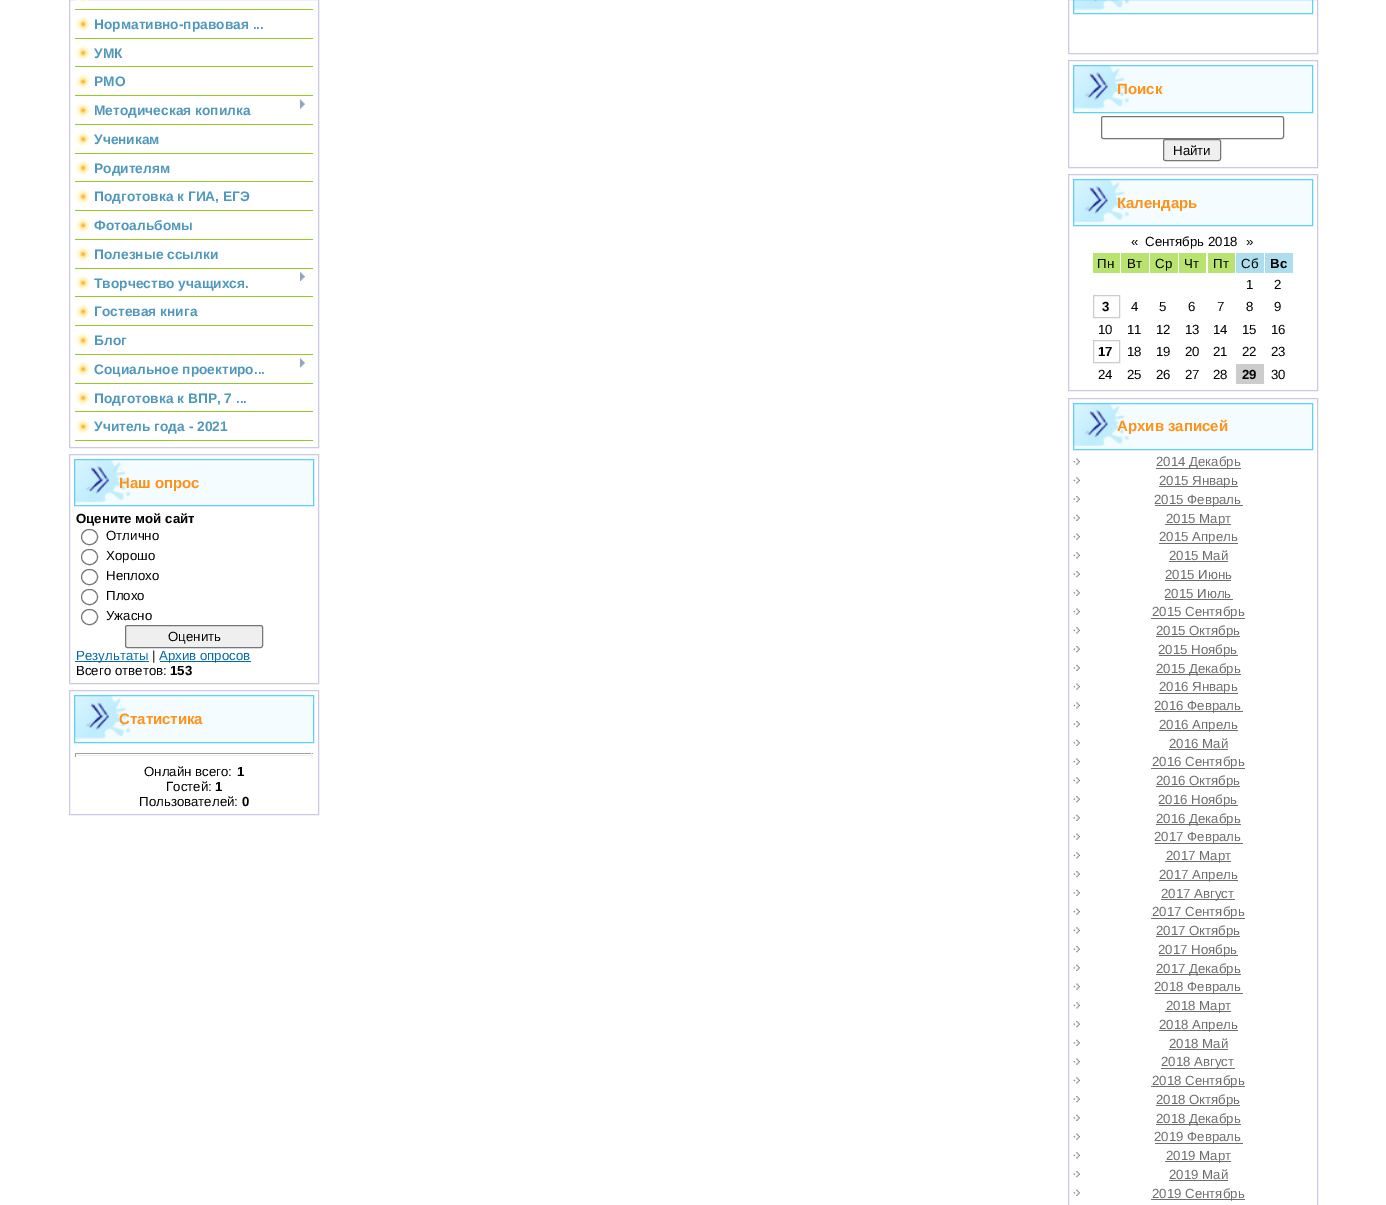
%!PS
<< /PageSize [1386 1205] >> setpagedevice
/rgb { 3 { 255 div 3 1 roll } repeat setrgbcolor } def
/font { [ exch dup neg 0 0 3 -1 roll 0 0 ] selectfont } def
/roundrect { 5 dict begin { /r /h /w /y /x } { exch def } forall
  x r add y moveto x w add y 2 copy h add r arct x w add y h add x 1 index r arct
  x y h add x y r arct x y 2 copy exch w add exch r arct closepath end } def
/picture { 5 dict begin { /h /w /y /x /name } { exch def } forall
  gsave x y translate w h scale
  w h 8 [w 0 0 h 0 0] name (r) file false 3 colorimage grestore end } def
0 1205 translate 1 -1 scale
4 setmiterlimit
255 255 255 rgb
0 0 1386 1205 rectfill
202 202 230 rgb
69.5 -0.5 249 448 rectstroke
(img/1.rgb) 77 0 11 3 picture
151 200 33 rgb
75 9 238 1 rectfill
(img/2.rgb) 75 16 14 15 picture
75 38 238 1 rectfill
(img/3.rgb) 75 45 14 15 picture
75 66 238 1 rectfill
(img/4.rgb) 75 73 14 16 picture
75 95 238 1 rectfill
(img/5.rgb) 75 102 14 16 picture
75 124 238 1 rectfill
(img/6.rgb) 300 99 5 10 picture
(img/2.rgb) 75 131 14 15 picture
75 153 238 1 rectfill
(img/3.rgb) 75 160 14 15 picture
75 181 238 1 rectfill
(img/4.rgb) 75 188 14 16 picture
75 210 238 1 rectfill
(img/5.rgb) 75 217 14 16 picture
75 239 238 1 rectfill
(img/2.rgb) 75 246 14 15 picture
75 268 238 1 rectfill
(img/3.rgb) 75 275 14 15 picture
75 296 238 1 rectfill
(img/7.rgb) 300 272 5 9 picture
(img/4.rgb) 75 303 14 16 picture
75 325 238 1 rectfill
(img/5.rgb) 75 332 14 16 picture
75 354 238 1 rectfill
(img/2.rgb) 75 361 14 15 picture
75 383 238 1 rectfill
(img/8.rgb) 300 358 5 10 picture
(img/3.rgb) 75 390 14 15 picture
75 411 238 1 rectfill
(img/4.rgb) 75 418 14 16 picture
75 440 238 1 rectfill
202 202 230 rgb
69.5 454.5 249 229 rectstroke
245 252 255 rgb
75 460 238 45 rectfill
(img/9.rgb) 75 460 56 43 picture
91 209 252 rgb
74.5 459.5 239 46 rectstroke
118 118 118 rgb
81.5 529.5 16 15 7.5 roundrect stroke
81.5 549.5 16 15 7.5 roundrect stroke
81.5 569.5 16 15 7.5 roundrect stroke
81.5 589.5 16 15 7.5 roundrect stroke
81.5 609.5 16 15 7.5 roundrect stroke
239 239 239 rgb
125.5 625.5 137 22 2 roundrect gsave fill grestore
118 118 118 rgb
stroke
0 105 169 rgb
75 661 74 1 rectfill
160 661 91 1 rectfill
202 202 230 rgb
69.5 690.5 249 124 rectstroke
245 252 255 rgb
75 696 238 46 rectfill
(img/10.rgb) 75 696 56 43 picture
91 209 252 rgb
74.5 695.5 239 47 rectstroke
[
  [75 753 238 1 159 159 159]
  [311 753 1 4 238 238 238]
  [75 755 238 1 238 238 238]
  [75 753 1 4 159 159 159]
] { aload pop rgb rectfill } forall
202 202 230 rgb
1068.5 -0.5 249 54 rectstroke
245 252 255 rgb
1074 0 238 13 rectfill
(img/11.rgb) 1074 0 55 10 picture
91 209 252 rgb
1073.5 -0.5 239 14 rectstroke
202 202 230 rgb
1068.5 60.5 249 107 rectstroke
245 252 255 rgb
1074 66 238 46 rectfill
(img/12.rgb) 1074 66 55 43 picture
91 209 252 rgb
1073.5 65.5 239 47 rectstroke
118 118 118 rgb
1101.5 116.5 182 22 2 roundrect stroke
239 239 239 rgb
1163.5 139.5 57 21 2 roundrect gsave fill grestore
118 118 118 rgb
stroke
202 202 230 rgb
1068.5 174.5 249 216 rectstroke
245 252 255 rgb
1074 180 238 45 rectfill
(img/13.rgb) 1074 180 55 43 picture
91 209 252 rgb
1073.5 179.5 239 46 rectstroke
[
  [1093 253 27 20 183 227 110]
  [1121 253 28 20 183 227 110]
  [1150 253 28 20 183 227 110]
  [1179 253 27 20 183 227 110]
  [1208 253 27 20 183 227 110]
  [1236 253 28 20 172 222 238]
  [1265 253 28 20 172 222 238]
] { aload pop rgb rectfill } forall
204 204 204 rgb
1093.5 295.5 26 22 rectstroke
1093.5 340.5 26 22 rectstroke
1236 364 28 20 rectfill
202 202 230 rgb
1068.5 398.5 249 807 rectstroke
245 252 255 rgb
1074 404 238 45 rectfill
(img/14.rgb) 1074 404 55 42 picture
91 209 252 rgb
1073.5 403.5 239 46 rectstroke
(img/15.rgb) 1073 458 7 7 picture
110 110 110 rgb
1156 468 85 1 rectfill
(img/16.rgb) 1073 477 7 7 picture
1159 486 79 1 rectfill
(img/17.rgb) 1073 496 7 7 picture
1155 505 88 1 rectfill
(img/18.rgb) 1073 514 7 7 picture
1165 524 66 1 rectfill
(img/15.rgb) 1073 533 7 7 picture
1159 543 79 1 rectfill
(img/16.rgb) 1073 552 7 7 picture
1169 561 59 1 rectfill
(img/17.rgb) 1073 571 7 7 picture
1165 580 66 1 rectfill
(img/18.rgb) 1073 589 7 7 picture
1165 599 68 1 rectfill
(img/15.rgb) 1073 608 7 7 picture
1151 618 94 1 rectfill
(img/16.rgb) 1073 627 7 7 picture
1156 636 84 1 rectfill
(img/17.rgb) 1073 646 7 7 picture
1159 655 79 1 rectfill
(img/18.rgb) 1073 664 7 7 picture
1156 674 85 1 rectfill
(img/15.rgb) 1073 683 7 7 picture
1159 693 79 1 rectfill
(img/16.rgb) 1073 702 7 7 picture
1155 711 88 1 rectfill
(img/17.rgb) 1073 721 7 7 picture
1159 730 79 1 rectfill
(img/18.rgb) 1073 739 7 7 picture
1169 749 59 1 rectfill
(img/15.rgb) 1073 758 7 7 picture
1151 768 94 1 rectfill
(img/16.rgb) 1073 777 7 7 picture
1156 786 84 1 rectfill
(img/17.rgb) 1073 796 7 7 picture
1159 805 79 1 rectfill
(img/18.rgb) 1073 814 7 7 picture
1156 824 85 1 rectfill
(img/15.rgb) 1073 833 7 7 picture
1155 843 88 1 rectfill
(img/16.rgb) 1073 852 7 7 picture
1165 861 66 1 rectfill
(img/17.rgb) 1073 871 7 7 picture
1159 880 79 1 rectfill
(img/18.rgb) 1073 889 7 7 picture
1161 899 74 1 rectfill
(img/15.rgb) 1073 908 7 7 picture
1151 918 94 1 rectfill
(img/16.rgb) 1073 927 7 7 picture
1156 936 84 1 rectfill
(img/17.rgb) 1073 946 7 7 picture
1159 955 79 1 rectfill
(img/18.rgb) 1073 964 7 7 picture
1156 974 85 1 rectfill
(img/15.rgb) 1073 983 7 7 picture
1155 993 88 1 rectfill
(img/16.rgb) 1073 1002 7 7 picture
1165 1011 66 1 rectfill
(img/17.rgb) 1073 1021 7 7 picture
1159 1030 79 1 rectfill
(img/18.rgb) 1073 1039 7 7 picture
1169 1049 59 1 rectfill
(img/15.rgb) 1073 1058 7 7 picture
1161 1068 74 1 rectfill
(img/16.rgb) 1073 1077 7 7 picture
1151 1086 94 1 rectfill
(img/17.rgb) 1073 1096 7 7 picture
1156 1105 84 1 rectfill
(img/18.rgb) 1073 1114 7 7 picture
1156 1124 85 1 rectfill
(img/15.rgb) 1073 1133 7 7 picture
1155 1143 88 1 rectfill
(img/16.rgb) 1073 1152 7 7 picture
1165 1161 66 1 rectfill
(img/17.rgb) 1073 1171 7 7 picture
1169 1180 59 1 rectfill
(img/18.rgb) 1073 1189 7 7 picture
1151 1199 94 1 rectfill
/LiberationSans-Bold 13.75 font
79 152 188 rgb
[
  [(Нормативно-правовая ...) 94 29]
  [(УМК) 94 58]
  [(РМО) 94 86]
  [(Методическая копилка) 94 115]
  [(Ученикам) 94 144]
  [(Родителям) 94 173]
  [(Подготовка к ГИА, ЕГЭ) 94 201]
  [(Фотоальбомы) 94 230]
  [(Полезные ссылки) 94 259]
  [(Творчество учащихся.) 94 288]
  [(Гостевая книга) 94 316]
  [(Блог) 94 345]
  [(Социальное проектиро...) 94 374]
  [(Подготовка к ВПР, 7 ...) 94 403]
  [(Учитель года - 2021) 94 431]
] { aload pop moveto show } forall
/LiberationSans-Bold 15 font
255 145 21 rgb
119 488 moveto (Наш опрос) show
/LiberationSans-Bold 13.25 font
0 0 0 rgb
76 523 moveto (Оцените мой сайт) show
/LiberationSans-Regular 13.25 font
[
  [(Отлично) 106 540]
  [(Хорошо) 106 560]
  [(Неплохо) 106 580]
  [(Плохо) 106 600]
  [(Ужасно) 106 620]
  [(Оценить) 168 641]
] { aload pop moveto show } forall
0 105 169 rgb
76 660 moveto (Результаты) show
0 0 0 rgb
152 660 moveto (|) show
0 105 169 rgb
159 660 moveto (Архив опросов) show
0 0 0 rgb
76 675 moveto (Всего ответов:) show
/LiberationSans-Bold 13.25 font
170 675 moveto (153) show
/LiberationSans-Bold 15 font
255 145 21 rgb
119 724 moveto (Статистика) show
/LiberationSans-Regular 13.25 font
0 0 0 rgb
144 776 moveto (Онлайн всего:) show
/LiberationSans-Bold 13.25 font
237 776 moveto (1) show
/LiberationSans-Regular 13.25 font
166 791 moveto (Гостей:) show
/LiberationSans-Bold 13.25 font
215 791 moveto (1) show
/LiberationSans-Regular 13.25 font
139 806 moveto (Пользователей:) show
/LiberationSans-Bold 13.25 font
242 806 moveto (0) show
/LiberationSans-Bold 15 font
255 145 21 rgb
1117 94 moveto (Поиск) show
/LiberationSans-Regular 13.25 font
0 0 0 rgb
1173 155 moveto (Найти) show
/LiberationSans-Bold 15 font
255 145 21 rgb
1117 208 moveto (Календарь) show
/LiberationSans-Regular 13.25 font
0 0 0 rgb
[
  [(«) 1131 246]
  [(Сентябрь 2018) 1145 246]
  [(») 1246 246]
  [(Пн) 1097 268]
  [(Вт) 1127 268]
  [(Ср) 1155 268]
  [(Чт) 1184 268]
  [(Пт) 1213 268]
  [(Сб) 1241 268]
] { aload pop moveto show } forall
/LiberationSans-Bold 13.25 font
1270 268 moveto (Вс) show
/LiberationSans-Regular 13.25 font
1246 289 moveto (1) show
1274 289 moveto (2) show
/LiberationSans-Bold 13.25 font
1102 311 moveto (3) show
/LiberationSans-Regular 13.25 font
[
  [(4) 1131 311]
  [(5) 1159 311]
  [(6) 1188 311]
  [(7) 1217 311]
  [(8) 1246 311]
  [(9) 1274 311]
  [(10) 1098 334]
  [(11) 1127 334]
  [(12) 1156 334]
  [(13) 1185 334]
  [(14) 1213 334]
  [(15) 1242 334]
  [(16) 1271 334]
] { aload pop moveto show } forall
/LiberationSans-Bold 13.25 font
1098 356 moveto (17) show
/LiberationSans-Regular 13.25 font
[
  [(18) 1127 356]
  [(19) 1156 356]
  [(20) 1185 356]
  [(21) 1213 356]
  [(22) 1242 356]
  [(23) 1271 356]
  [(24) 1098 379]
  [(25) 1127 379]
  [(26) 1156 379]
  [(27) 1185 379]
  [(28) 1213 379]
] { aload pop moveto show } forall
/LiberationSans-Bold 13.25 font
1242 379 moveto (29) show
/LiberationSans-Regular 13.25 font
1271 379 moveto (30) show
/LiberationSans-Bold 15 font
255 145 21 rgb
1117 431 moveto (Архив записей) show
/LiberationSans-Regular 13.25 font
110 110 110 rgb
[
  [(2014 Декабрь) 1156 466]
  [(2015 Январь) 1159 485]
  [(2015 Февраль) 1154 504]
  [(2015 Март) 1166 523]
  [(2015 Апрель) 1159 541]
  [(2015 Май) 1169 560]
  [(2015 Июнь) 1165 579]
  [(2015 Июль) 1164 598]
  [(2015 Сентябрь) 1152 616]
  [(2015 Октябрь) 1156 635]
  [(2015 Ноябрь) 1158 654]
  [(2015 Декабрь) 1156 673]
  [(2016 Январь) 1159 691]
  [(2016 Февраль) 1154 710]
  [(2016 Апрель) 1159 729]
  [(2016 Май) 1169 748]
  [(2016 Сентябрь) 1152 766]
  [(2016 Октябрь) 1156 785]
  [(2016 Ноябрь) 1158 804]
  [(2016 Декабрь) 1156 823]
  [(2017 Февраль) 1154 841]
  [(2017 Март) 1166 860]
  [(2017 Апрель) 1159 879]
  [(2017 Август) 1161 898]
  [(2017 Сентябрь) 1152 916]
  [(2017 Октябрь) 1156 935]
  [(2017 Ноябрь) 1158 954]
  [(2017 Декабрь) 1156 973]
  [(2018 Февраль) 1154 991]
  [(2018 Март) 1166 1010]
  [(2018 Апрель) 1159 1029]
  [(2018 Май) 1169 1048]
  [(2018 Август) 1161 1066]
  [(2018 Сентябрь) 1152 1085]
  [(2018 Октябрь) 1156 1104]
  [(2018 Декабрь) 1156 1123]
  [(2019 Февраль) 1154 1141]
  [(2019 Март) 1166 1160]
  [(2019 Май) 1169 1179]
  [(2019 Сентябрь) 1152 1198]
] { aload pop moveto show } forall
showpage
